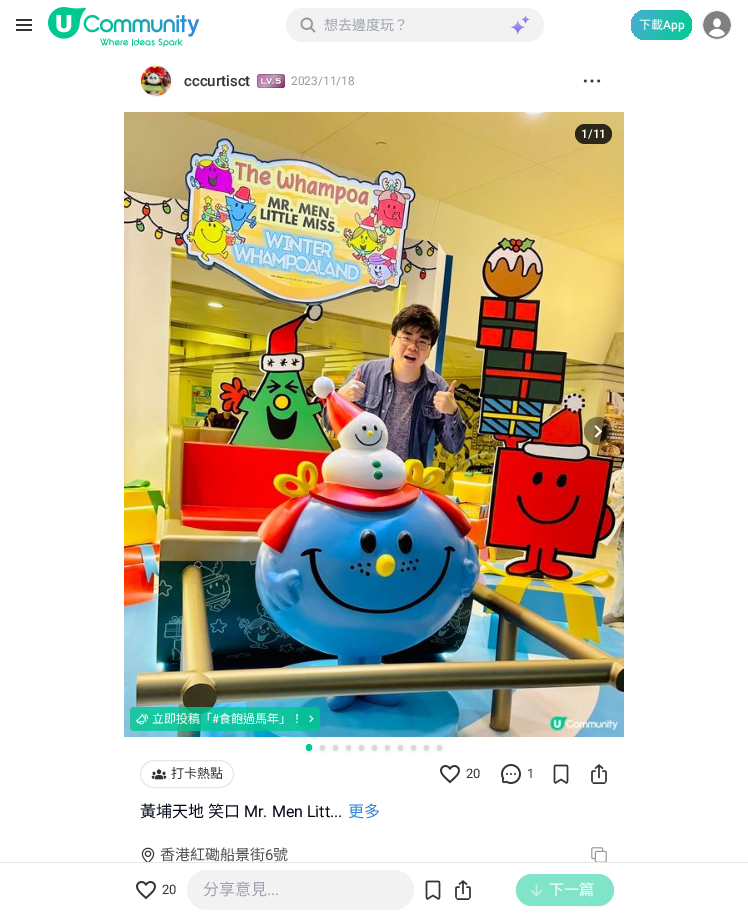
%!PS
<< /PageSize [748 917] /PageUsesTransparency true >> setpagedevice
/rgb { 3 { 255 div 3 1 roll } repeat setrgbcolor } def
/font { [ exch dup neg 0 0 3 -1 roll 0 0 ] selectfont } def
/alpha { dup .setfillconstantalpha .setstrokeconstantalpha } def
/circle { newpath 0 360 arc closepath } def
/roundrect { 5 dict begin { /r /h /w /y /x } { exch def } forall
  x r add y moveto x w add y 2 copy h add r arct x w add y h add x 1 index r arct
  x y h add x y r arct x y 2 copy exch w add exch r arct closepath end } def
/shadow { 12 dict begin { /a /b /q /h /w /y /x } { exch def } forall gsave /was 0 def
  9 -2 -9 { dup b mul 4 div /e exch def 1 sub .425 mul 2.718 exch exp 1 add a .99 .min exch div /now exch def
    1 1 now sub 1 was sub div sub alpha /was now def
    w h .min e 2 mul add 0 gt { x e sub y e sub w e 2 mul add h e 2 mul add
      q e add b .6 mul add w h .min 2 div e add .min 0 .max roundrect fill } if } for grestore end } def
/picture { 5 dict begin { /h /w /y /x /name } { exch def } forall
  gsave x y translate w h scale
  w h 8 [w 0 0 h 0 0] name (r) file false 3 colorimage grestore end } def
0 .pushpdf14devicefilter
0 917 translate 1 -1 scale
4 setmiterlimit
255 255 255 rgb
0 0 748 917 rectfill
(img/1.rgb) 16 19 16 12 picture
(img/2.rgb) 48 7 151 40 picture
242 242 242 rgb
286 8 258 34 17 roundrect fill
(img/3.rgb) 300 17 16 16 picture
(img/4.rgb) 510 15 20 20 picture
gsave 631 10 61 30 15 roundrect clip newpath
<< /ShadingType 2 /ColorSpace /DeviceRGB /Coords [631 11 692 39] /Extend [true true] /Function << /FunctionType 2 /Domain [0 1] /C0 [0.294 0.678 0.839] /C1 [0 0.8 0.561] /N 1 >> >> shfill grestore
717 25 14.5 circle stroke
(img/5.rgb) 703 11 28 28 picture
156 81 15.5 circle stroke
(img/6.rgb) 141 66 30 30 picture
(img/7.rgb) 257 74 28 14 picture
(img/8.rgb) 583 79 18 4 picture
(img/10.rgb) 124 112 500 625 picture
0.8 alpha
0 0 0 rgb
575 124 37 20 10 roundrect fill
0.4 alpha
598 431 14 circle fill
1 alpha
(img/9.rgb) 594 425 9 13 picture
0.8 alpha
0 200 145 rgb
130 707 190 24 4 roundrect fill
1 alpha
(img/11.rgb) 136 713 12 12 picture
(img/12.rgb) 309 715 5 8 picture
0 0 0 rgb
307 747 4 4 2 1 0.1 shadow
306 746 6 6 3 2 0.1 shadow
0 200 145 rgb
306 744 6 7 3 roundrect fill
0 0 0 rgb
321 747 3 3 1.5 1 0.1 shadow
320 746 5 5 2.5 1.5 0.1 shadow
216 216 216 rgb
322.5 747.5 2.5 circle fill
0 0 0 rgb
334 747 3 3 1.5 1 0.1 shadow
333 746 5 5 2.5 1.5 0.1 shadow
216 216 216 rgb
335.5 747.5 2.5 circle fill
0 0 0 rgb
347 747 3 3 1.5 1 0.1 shadow
346 746 5 5 2.5 1.5 0.1 shadow
216 216 216 rgb
348.5 747.5 2.5 circle fill
0 0 0 rgb
360 747 3 3 1.5 1 0.1 shadow
359 746 5 5 2.5 1.5 0.1 shadow
216 216 216 rgb
361.5 747.5 2.5 circle fill
0 0 0 rgb
373 747 3 3 1.5 1 0.1 shadow
372 746 5 5 2.5 1.5 0.1 shadow
216 216 216 rgb
374.5 747.5 2.5 circle fill
0 0 0 rgb
386 747 3 3 1.5 1 0.1 shadow
385 746 5 5 2.5 1.5 0.1 shadow
216 216 216 rgb
387.5 747.5 2.5 circle fill
0 0 0 rgb
399 747 3 3 1.5 1 0.1 shadow
398 746 5 5 2.5 1.5 0.1 shadow
216 216 216 rgb
400.5 747.5 2.5 circle fill
0 0 0 rgb
412 747 3 3 1.5 1 0.1 shadow
411 746 5 5 2.5 1.5 0.1 shadow
216 216 216 rgb
413.5 747.5 2.5 circle fill
0 0 0 rgb
425 747 3 3 1.5 1 0.1 shadow
424 746 5 5 2.5 1.5 0.1 shadow
216 216 216 rgb
426.5 747.5 2.5 circle fill
0 0 0 rgb
438 747 3 3 1.5 1 0.1 shadow
437 746 5 5 2.5 1.5 0.1 shadow
216 216 216 rgb
439.5 747.5 2.5 circle fill
230 230 230 rgb
140.5 760.5 93 27 13.5 roundrect stroke
(img/13.rgb) 151 769 16 11 picture
(img/14.rgb) 440 765 20 19 picture
(img/15.rgb) 501 764 20 20 picture
(img/16.rgb) 553 764 16 20 picture
(img/17.rgb) 591 764 16 20 picture
(img/18.rgb) 141 847 14 15 picture
(img/19.rgb) 591 847 16 15 picture
231 231 231 rgb
0 862 748 1 rectfill
(img/14.rgb) 136 881 20 19 picture
242 242 242 rgb
187 870 227 40 20 roundrect fill
(img/16.rgb) 425 880 16 20 picture
(img/17.rgb) 455 880 16 20 picture
128 128 128 rgb
517 876 96 30 15 1 0.1 shadow
516 875 98 32 16 1.5 0.1 shadow
128 228 200 rgb
516 874 98 32 16 roundrect fill
(img/20.rgb) 531 884 11 12 picture
/NotoSansCJKHK-Regular 14 font
156 163 175 rgb
324 30 moveto (想去邊度玩？) show
/NotoSansCJKHK-Regular 12 font
255 255 255 rgb
639 29 moveto (下載) show
/Roboto-Medium 12 font
663 29 moveto (App) show
/Roboto-Medium 15 font
51 51 51 rgb
184 86 moveto (cccurtisct) show
/Roboto-Regular 12 font
153 153 153 rgb
291 85 moveto (2023/11/18) show
/Roboto-Medium 12 font
255 255 255 rgb
581 138 moveto (1/11) show
/NotoSansCJKHK-Regular 12 font
152 723 moveto (立即投稿「) show
/Roboto-Medium 12 font
212 723 moveto (#) show
/NotoSansCJKHK-Regular 12 font
219 723 moveto (食飽過馬年」！) show
/NotoSansCJKHK-Regular 13 font
51 51 51 rgb
171 778 moveto (打卡熱點) show
/Roboto-Regular 13 font
466 778 moveto (20) show
527 778 moveto (1) show
/NotoSansCJKHK-Regular 16 font
2 8 23 rgb
140 817 moveto (黃埔天地) show
208 817 moveto (笑口) show
/Roboto-Regular 16 font
244 817 moveto (Mr. Men Litt...) show
/NotoSansCJKHK-Regular 16 font
48 135 217 rgb
348 817 moveto (更多) show
/NotoSansCJKHK-Regular 15 font
80 80 80 rgb
160 860 moveto (香港紅磡船景街) show
/Roboto-Regular 15 font
265 860 moveto (6) show
/NotoSansCJKHK-Regular 15 font
273 860 moveto (號) show
/Roboto-Regular 13 font
51 51 51 rgb
162 894 moveto (20) show
/NotoSansCJKHK-Regular 16 font
156 163 175 rgb
203 895 moveto (分享意見) show
/Roboto-Regular 16 font
267 895 moveto (...) show
/NotoSansCJKHK-Regular 15 font
255 255 255 rgb
549 895 moveto (下一篇) show
.poppdf14devicefilter showpage
